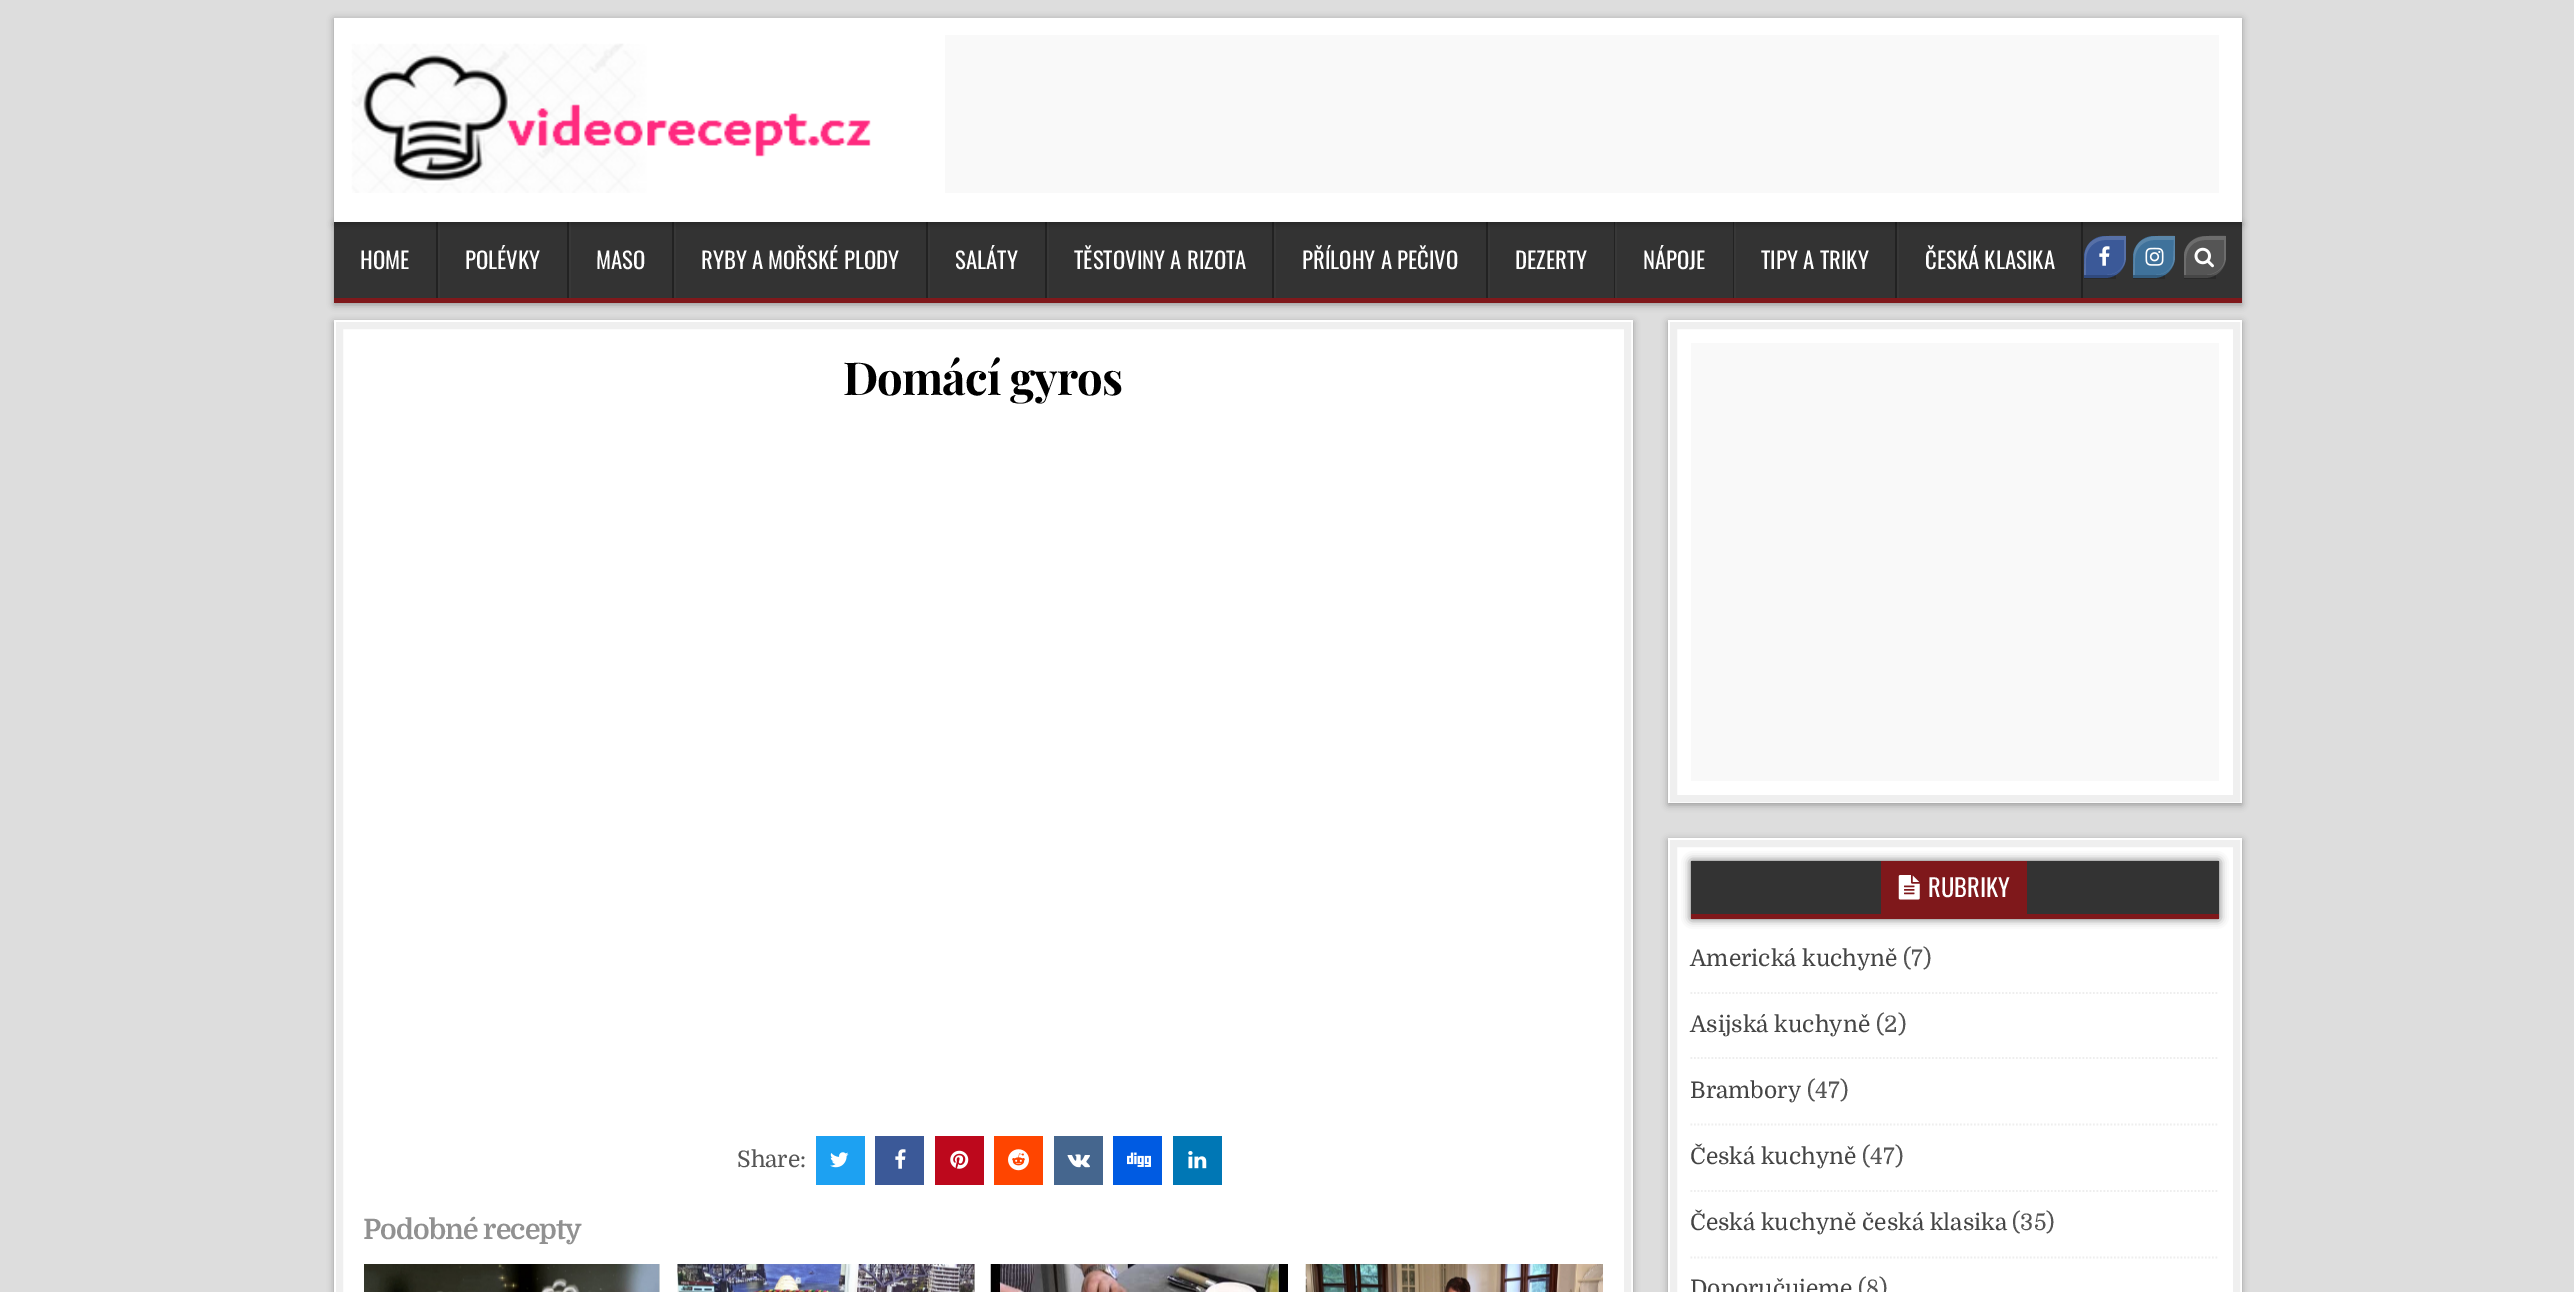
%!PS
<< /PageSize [2574 1292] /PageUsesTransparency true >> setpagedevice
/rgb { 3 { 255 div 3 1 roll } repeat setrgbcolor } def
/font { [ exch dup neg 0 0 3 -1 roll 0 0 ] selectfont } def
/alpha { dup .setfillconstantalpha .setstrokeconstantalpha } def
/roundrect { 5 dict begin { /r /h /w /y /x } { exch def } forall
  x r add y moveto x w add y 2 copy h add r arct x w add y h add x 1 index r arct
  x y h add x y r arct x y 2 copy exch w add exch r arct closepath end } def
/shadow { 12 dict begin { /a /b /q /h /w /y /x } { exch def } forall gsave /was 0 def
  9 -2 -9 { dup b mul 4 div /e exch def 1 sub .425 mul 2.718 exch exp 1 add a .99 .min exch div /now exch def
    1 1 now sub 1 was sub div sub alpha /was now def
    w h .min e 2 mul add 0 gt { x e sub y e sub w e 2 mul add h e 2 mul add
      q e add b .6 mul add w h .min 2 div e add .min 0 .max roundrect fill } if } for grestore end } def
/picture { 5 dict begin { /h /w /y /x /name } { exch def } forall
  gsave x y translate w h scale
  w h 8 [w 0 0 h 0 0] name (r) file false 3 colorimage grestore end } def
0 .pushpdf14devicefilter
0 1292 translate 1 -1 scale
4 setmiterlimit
221 221 221 rgb
0 0 2574 1292 rectfill
0 0 0 rgb
334 224 1908 81 0 3.5 0.3 shadow
[
  [334 222 1908 76 51 51 51]
  [436 222 2 76 34 34 34]
  [567 222 2 76 34 34 34]
  [438 222 2 76 56 56 56]
  [672 222 2 76 34 34 34]
  [569 222 2 76 56 56 56]
  [926 222 2 76 34 34 34]
  [674 222 2 76 56 56 56]
  [1045 222 2 76 34 34 34]
  [928 222 2 76 56 56 56]
  [1272 222 2 76 34 34 34]
  [1047 222 2 76 56 56 56]
  [1486 222 2 76 34 34 34]
  [1274 222 2 76 56 56 56]
  [1614 222 1 76 34 34 34]
  [1488 222 2 76 56 56 56]
  [1733 222 1 76 34 34 34]
  [1615 222 2 76 56 56 56]
  [1895 222 2 76 34 34 34]
  [1734 222 2 76 56 56 56]
  [2081 222 2 76 34 34 34]
  [1897 222 2 76 56 56 56]
] { aload pop rgb rectfill } forall
59 89 152 rgb
2105 236 moveto 2126 236 lineto 2126 257 lineto 2126 268.5 2116.5 278 2105 278 curveto 2084 278 lineto 2084 257 lineto 2084 245.5 2093.5 236 2105 236 curveto closepath fill
0.14 alpha
255 255 255 rgb
2105 240 moveto 2124 240 lineto 2124 262 lineto 2122 271 2115 274 2107 275 curveto 2118 274 2126 267 2126 257 curveto 2126 236 lineto 2111 236 2089 233 2085 253 curveto 2084 275 lineto 2086 275 lineto 2086 259 lineto 2086 248 2095 240 2105 240 curveto closepath fill
1 alpha
63 114 155 rgb
2154 236 moveto 2175 236 lineto 2175 257 lineto 2175 268.5 2165.5 278 2154 278 curveto 2133 278 lineto 2133 257 lineto 2133 245.5 2142.5 236 2154 236 curveto closepath fill
0.14 alpha
255 255 255 rgb
2154 240 moveto 2174 240 lineto 2173 262 lineto 2171 271 2164 274 2156 275 curveto 2167 274 2175 267 2175 257 curveto 2175 236 lineto 2160 236 2138 233 2134 253 curveto 2133 275 lineto 2135 275 lineto 2135 259 lineto 2135 248 2144 240 2154 240 curveto closepath fill
1 alpha
85 85 85 rgb
2205 236 moveto 2226 236 lineto 2226 257 lineto 2226 268.5 2216.5 278 2205 278 curveto 2184 278 lineto 2184 257 lineto 2184 245.5 2193.5 236 2205 236 curveto closepath fill
0.14 alpha
255 255 255 rgb
2205 240 moveto 2224 240 lineto 2224 262 lineto 2222 270 2215 274 2207 275 curveto 2218 274 2226 266 2226 257 curveto 2226 236 lineto 2211 236 2189 233 2184 253 curveto 2184 275 lineto 2186 275 lineto 2186 259 lineto 2186 248 2194 240 2205 240 curveto closepath fill
1 alpha
0 0 0 rgb
334 19 1908 205 0 3.5 0.3 shadow
255 255 255 rgb
334 18 1908 204 rectfill
(img/1.rgb) 351 43 520 150 picture
[
  [945 35 1274 158 249 249 249]
  [334 298 1908 5 127 24 27]
] { aload pop rgb rectfill } forall
0.18 alpha
[
  [2084 275 32 4 0 0 0]
] { aload pop rgb rectfill } forall
1 alpha
(img/2.rgb) 2099 246 11 20 picture
0.18 alpha
2133 275 32 4 rectfill
1 alpha
(img/3.rgb) 2145 247 19 19 picture
0.18 alpha
2184 275 32 4 rectfill
1 alpha
(img/4.rgb) 2194 247 20 21 picture
334 322 1299 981 0 3.5 0.3 shadow
255 255 255 rgb
334 320 1299 972 rectfill
239 239 239 rgb
7 setlinewidth
339.5 325.5 1288 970 rectstroke
29 161 242 rgb
816 1136 49 49 rectfill
(img/5.rgb) 830 1152 19 16 picture
59 89 152 rgb
875 1136 49 49 rectfill
(img/2.rgb) 895 1149 11 20 picture
189 8 28 rgb
935 1136 49 49 rectfill
(img/6.rgb) 950 1150 19 19 picture
255 69 0 rgb
994 1136 49 49 rectfill
(img/7.rgb) 1008 1149 21 22 picture
69 102 142 rgb
1054 1136 49 49 rectfill
(img/8.rgb) 1067 1154 23 14 picture
0 91 226 rgb
1113 1136 49 49 rectfill
(img/9.rgb) 1127 1152 24 15 picture
0 119 181 rgb
1173 1136 49 49 rectfill
(img/10.rgb) 1188 1151 19 18 picture
(img/11.rgb) 364 1264 296 28 picture
(img/12.rgb) 677 1264 298 28 picture
(img/13.rgb) 990 1264 298 28 picture
(img/14.rgb) 1305 1264 298 28 picture
0 0 0 rgb
1668 322 574 483 0 3.5 0.3 shadow
255 255 255 rgb
1668 320 574 483 rectfill
239 239 239 rgb
1673.5 325.5 563 473 rectstroke
249 249 249 rgb
1691 343 528 438 rectfill
0 0 0 rgb
1668 840 574 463 0 3.5 0.3 shadow
255 255 255 rgb
1668 838 574 454 rectfill
239 239 239 rgb
1673.5 843.5 563 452 rectstroke
0 0 0 rgb
1691 861 528 58 0 4.5 0.6 shadow
[
  [1691 861 528 53 51 51 51]
  [1691 914 528 5 127 24 27]
  [1881 861 146 53 127 24 27]
] { aload pop rgb rectfill } forall
(img/15.rgb) 1898 875 22 25 picture
238 238 238 rgb
1.8 setlinewidth
[1.75 1.75] 0 setdash
1690.5 993 moveto 2219 993 lineto stroke
1690.5 1058 moveto 2219 1058 lineto stroke
1690.5 1124.5 moveto 2219 1124.5 lineto stroke
1690.5 1191 moveto 2219 1191 lineto stroke
1690.5 1257.5 moveto 2219 1257.5 lineto stroke
/Oswald-Regular 22.75 font
255 255 255 rgb
[
  [(HOME) 360 269]
  [(POLÉVKY) 465 269]
  [(MASO) 596 269]
  [(RYBY A MOŘSKÉ PLODY) 701 269]
  [(SALÁTY) 955 269]
  [(TĚSTOVINY A RIZOTA) 1074 269]
  [(PŘÍLOHY A PEČIVO) 1302 269]
  [(DEZERTY) 1515 269]
  [(NÁPOJE) 1643 269]
  [(TIPY A TRIKY) 1761 269]
  [(ČESKÁ KLASIKA) 1925 269]
] { aload pop moveto show } forall
/PlayfairDisplay-Bold 45.5 font
0 0 0 rgb
843 395 moveto -0.9 0 (Domácí gyros) ashow
/Domine-Regular 22.75 font
85 85 85 rgb
737 1167 moveto (Share:) show
/Domine-Bold 28 font
145 145 145 rgb
363 1239 moveto -0.9 0 (Podobné recepty) ashow
/Oswald-Regular 24.5 font
255 255 255 rgb
1928 897 moveto (RUBRIKY) show
/Domine-Regular 22.75 font
68 68 68 rgb
1690 966 moveto (Americká kuchyně) show
85 85 85 rgb
1903 966 moveto (\(7\)) show
68 68 68 rgb
1690 1032 moveto (Asijská kuchyně) show
85 85 85 rgb
1876 1032 moveto (\(2\)) show
68 68 68 rgb
1690 1098 moveto (Brambory) show
85 85 85 rgb
1807 1098 moveto (\(47\)) show
68 68 68 rgb
1690 1164 moveto (Česká kuchyně) show
85 85 85 rgb
1862 1164 moveto (\(47\)) show
68 68 68 rgb
1690 1230 moveto (Česká kuchyně česká klasika) show
85 85 85 rgb
2012 1230 moveto (\(35\)) show
68 68 68 rgb
1690 1296 moveto (Doporučujeme) show
85 85 85 rgb
1858 1296 moveto (\(8\)) show
.poppdf14devicefilter showpage
